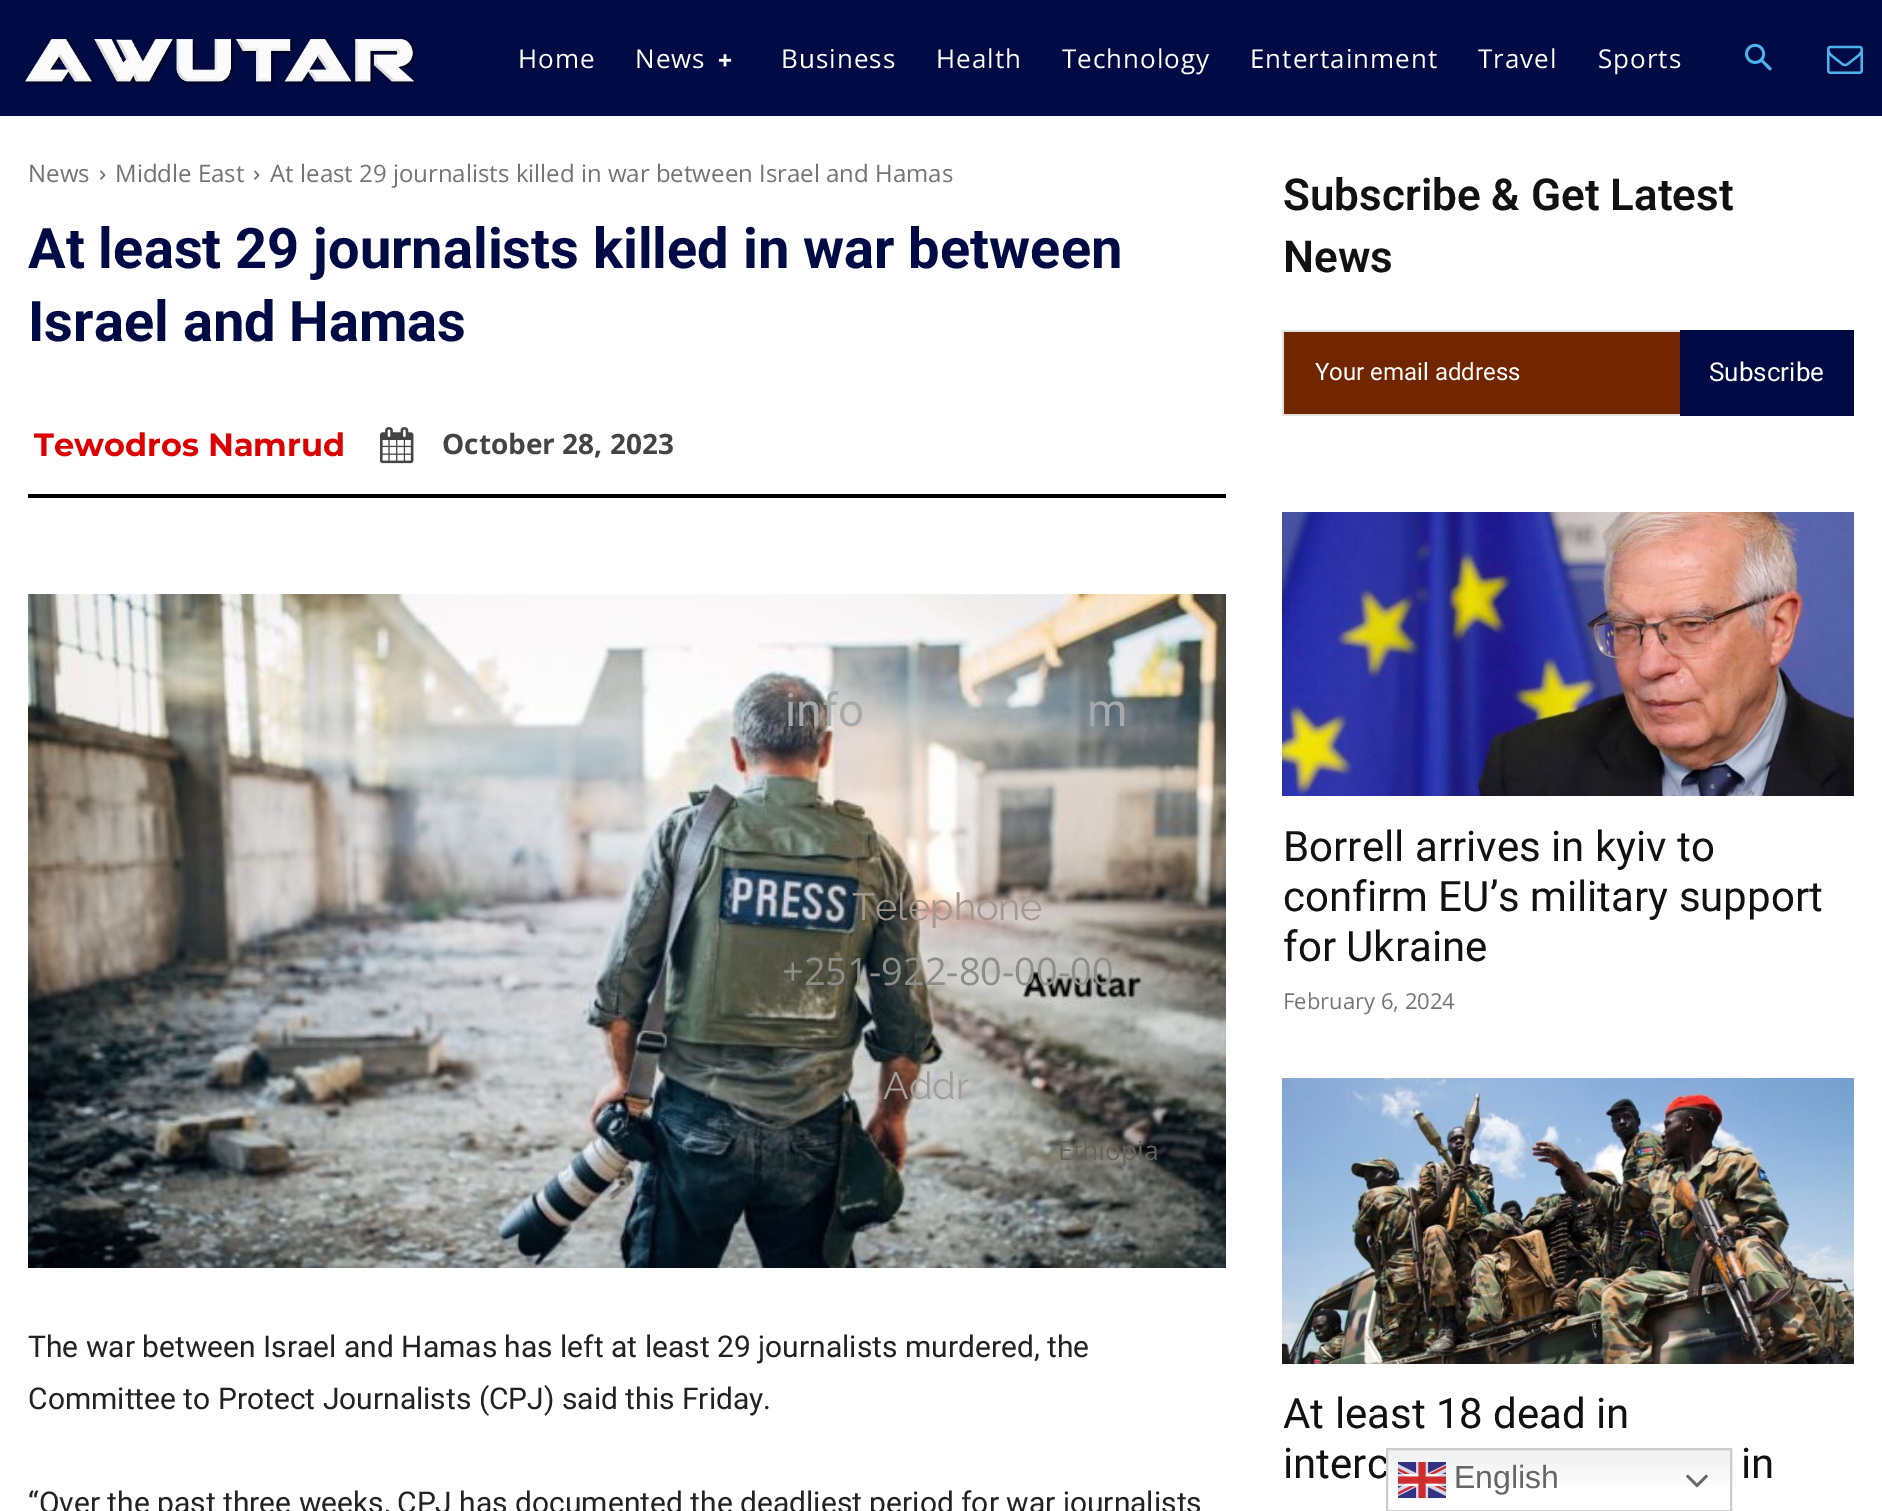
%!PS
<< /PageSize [1882 1511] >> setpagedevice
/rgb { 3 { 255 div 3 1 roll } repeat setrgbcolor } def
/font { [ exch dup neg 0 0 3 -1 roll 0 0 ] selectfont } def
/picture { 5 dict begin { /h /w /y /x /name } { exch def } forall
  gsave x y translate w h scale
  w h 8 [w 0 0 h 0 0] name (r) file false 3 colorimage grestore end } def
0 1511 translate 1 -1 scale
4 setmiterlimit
255 255 255 rgb
0 0 1882 1511 rectfill
0 10 68 rgb
0 0 1882 116 rectfill
(img/1.rgb) 25 38 391 47 picture
(img/2.rgb) 718 54 14 13 picture
(img/3.rgb) 1745 43 27 28 picture
(img/4.rgb) 1827 45 36 29 picture
(img/5.rgb) 100 170 6 10 picture
(img/5.rgb) 254 170 6 10 picture
(img/6.rgb) 380 427 34 37 picture
0 0 0 rgb
28 494 1198 4 rectfill
(img/7.rgb) 28 594 1198 674 picture
[
  [1284 332 396 82 114 38 0]
  [1282 330 398 2 225 225 225]
  [1282 414 398 2 225 225 225]
  [1282 330 2 86 225 225 225]
  [1680 330 174 86 0 10 68]
] { aload pop rgb rectfill } forall
(img/8.rgb) 1282 512 572 284 picture
(img/9.rgb) 1282 1078 572 286 picture
gsave 1388 1450 moveto 1730 1450 lineto 1730 1486 lineto 1388 1486 lineto closepath clip newpath
<< /ShadingType 2 /ColorSpace /DeviceRGB /Coords [1559 1448 1559 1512] /Extend [true true] /Function << /FunctionType 3 /Domain [0 1] /Functions [<< /FunctionType 2 /Domain [0 1] /C0 [0.937 0.937 0.937] /C1 [1 1 1] /N 1 >> << /FunctionType 2 /Domain [0 1] /C0 [1 1 1] /C1 [1 1 1] /N 1 >>] /Bounds [0.7] /Encode [0 1 0 1] >> >> shfill grestore
/OpenSans-Regular 26 font
255 255 255 rgb
518 68 moveto 1 0 (Home) ashow
635 68 moveto 1 0 (News) ashow
781 68 moveto 1 0 (Business) ashow
936 68 moveto 1 0 (Health) ashow
1062 68 moveto 1 0 (Technology) ashow
1250 68 moveto 1 0 (Entertainment) ashow
1478 68 moveto 1 0 (Travel) ashow
1598 68 moveto 1 0 (Sports) ashow
/OpenSans-Regular 24 font
116 116 116 rgb
[
  [(News) 28 182]
  [(Middle East) 115 182]
  [(At least 29 journalists killed in war between Israel and Hamas) 270 182]
] { aload pop moveto show } forall
/Roboto-Bold 56 font
0 10 68 rgb
28 268 moveto (At least 29 journalists killed in war between) show
28 341 moveto (Israel and Hamas) show
/Montserrat-Bold 32 font
221 0 0 rgb
34 456 moveto (Tewodros Namrud) show
/OpenSans-Bold 28 font
68 68 68 rgb
442 454 moveto (October 28, 2023) show
/Roboto-Regular 30 font
34 34 34 rgb
[
  [(The war between Israel and Hamas has left at least 29 journalists murdered, the) 28 1357]
  [(Committee to Protect Journalists \(CPJ\) said this Friday.) 28 1409]
  [(“Over the past three weeks, CPJ has documented the deadliest period for war journalists) 28 1513]
] { aload pop moveto show } forall
/Roboto-SemiBold 44 font
17 17 17 rgb
1283 210 moveto (Subscribe & Get Latest) show
1283 272 moveto (News) show
/Roboto-Regular 24 font
255 255 255 rgb
1315 380 moveto (Your email address) show
/Roboto-Regular 26 font
1709 381 moveto (Subscribe) show
/Roboto-Regular 42 font
17 17 17 rgb
[
  [(Borrell arrives in kyiv to) 1283 861]
  [(confirm EU’s military support) 1283 911]
  [(for Ukraine) 1283 961]
] { aload pop moveto show } forall
/OpenSans-Regular 22 font
116 116 116 rgb
1283 1009 moveto (February 6, 2024) show
/Roboto-Regular 42 font
17 17 17 rgb
[
  [(At least 18 dead in) 1283 1428]
  [(interc) 1283 1478]
  [(in) 1741 1478]
] { aload pop moveto show } forall
/Roboto-Regular 46 font
166 170 170 rgb
785 726 moveto (info) show
1087 726 moveto (m) show
/Raleway-Regular 38 font
163 151 142 rgb
852 920 moveto (Telephone) show
/OpenSans-Regular 38 font
141 142 136 rgb
782 985 moveto (+251-922-80-00-00) show
/Raleway-Regular 38 font
162 158 154 rgb
883 1099 moveto (Addr) show
/OpenSans-Regular 26.5 font
100 99 93 rgb
1058 1160 moveto (Ethiopia) show
204 204 204 rgb
2 setlinewidth
1387 1449 344 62 rectstroke
(img/10.rgb) 1398 1462 48 36 picture
/LiberationSans-Regular 32 font
102 102 102 rgb
1454 1488 moveto (English) show
(img/11.rgb) 1686 1474 22 14 picture
showpage
